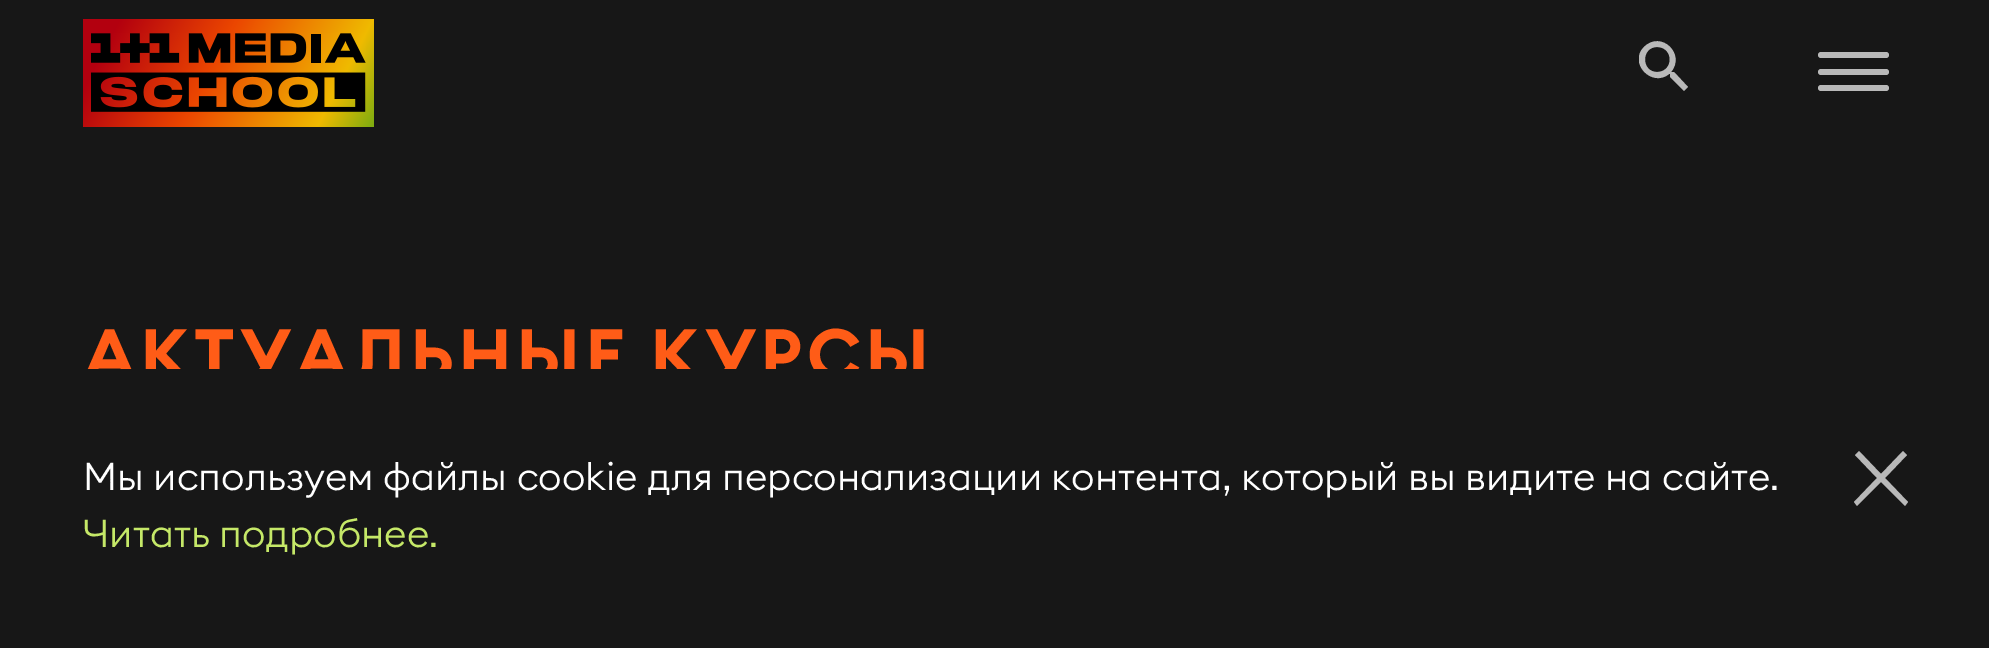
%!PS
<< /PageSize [1989 648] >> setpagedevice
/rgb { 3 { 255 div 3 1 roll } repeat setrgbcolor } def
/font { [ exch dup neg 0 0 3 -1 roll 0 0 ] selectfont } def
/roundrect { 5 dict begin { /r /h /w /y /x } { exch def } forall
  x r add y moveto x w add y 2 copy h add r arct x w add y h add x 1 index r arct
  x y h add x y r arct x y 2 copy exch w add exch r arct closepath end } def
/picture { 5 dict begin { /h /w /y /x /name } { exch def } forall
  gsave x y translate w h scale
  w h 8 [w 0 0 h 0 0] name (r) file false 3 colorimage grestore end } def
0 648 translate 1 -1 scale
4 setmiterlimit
23 23 23 rgb
0 0 1989 648 rectfill
gsave 83 19 moveto 374 19 lineto 374 127 lineto 83 127 lineto closepath clip newpath
<< /ShadingType 2 /ColorSpace /DeviceRGB /Coords [151 -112 866 258] /Extend [true true] /Function << /FunctionType 3 /Domain [0 1] /Functions [<< /FunctionType 2 /Domain [0 1] /C0 [0.702 0 0.059] /C1 [0.702 0 0.059] /N 1 >> << /FunctionType 2 /Domain [0 1] /C0 [0.702 0 0.059] /C1 [0.922 0.275 0] /N 1 >> << /FunctionType 2 /Domain [0 1] /C0 [0.922 0.275 0] /C1 [0.937 0.729 0] /N 1 >> << /FunctionType 2 /Domain [0 1] /C0 [0.937 0.729 0] /C1 [0.004 0.616 0.141] /N 1 >> << /FunctionType 2 /Domain [0 1] /C0 [0.004 0.616 0.141] /C1 [0.529 0.796 0.835] /N 1 >> << /FunctionType 2 /Domain [0 1] /C0 [0.529 0.796 0.835] /C1 [0.145 0.325 0.404] /N 1 >> << /FunctionType 2 /Domain [0 1] /C0 [0.145 0.325 0.404] /C1 [0.176 0.157 0.416] /N 1 >> << /FunctionType 2 /Domain [0 1] /C0 [0.176 0.157 0.416] /C1 [0.114 0.141 0.216] /N 1 >> << /FunctionType 2 /Domain [0 1] /C0 [0.114 0.141 0.216] /C1 [0.114 0.141 0.216] /N 1 >>] /Bounds [0.04 0.17 0.32 0.45 0.57 0.73 0.83 0.96] /Encode [0 1 0 1 0 1 0 1 0 1 0 1 0 1 0 1 0 1] >> >> shfill grestore
(img/1.rgb) 91 33 275 79 picture
gsave
1639 41 50 50 rectclip
185 185 185 rgb
1674 72 moveto 1672 72 lineto 1671 72 lineto 1686 54 1661 30 1644 47 curveto 1628 63 1652 88 1669 74 curveto 1670 74 lineto 1670 77 lineto 1684 91 lineto 1688 87 lineto closepath 1657 72 moveto 1641 72 1641 47 1657 47 curveto 1674 47 1674 72 1657 72 curveto closepath fill
grestore
185 185 185 rgb
1818 69 71 6 3 roundrect fill
1818 52 71 6 3 roundrect fill
1818 85 71 6 3 roundrect fill
1857 506 moveto 1854 502 lineto 1877 478 lineto 1855 455 lineto 1859 451 lineto 1881 474 lineto 1903 451 lineto 1907 455 lineto 1885 478 lineto 1908 502 lineto 1905 506 lineto 1881 482 lineto closepath fill
/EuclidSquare-SemiBold 71.5 font
255 92 23 rgb
83 380 moveto 4.25 0 (АКТУАЛЬНЫЕ КУРСЫ) ashow
23 23 23 rgb
82 369 842 12 rectfill
/EuclidSquare-Light 38.5 font
255 255 255 rgb
83 490 moveto (Мы используем файлы cookie для персонализации контента, который вы видите на сайте.) show
197 232 104 rgb
83 547 moveto (Читать подробнее.) show
showpage
